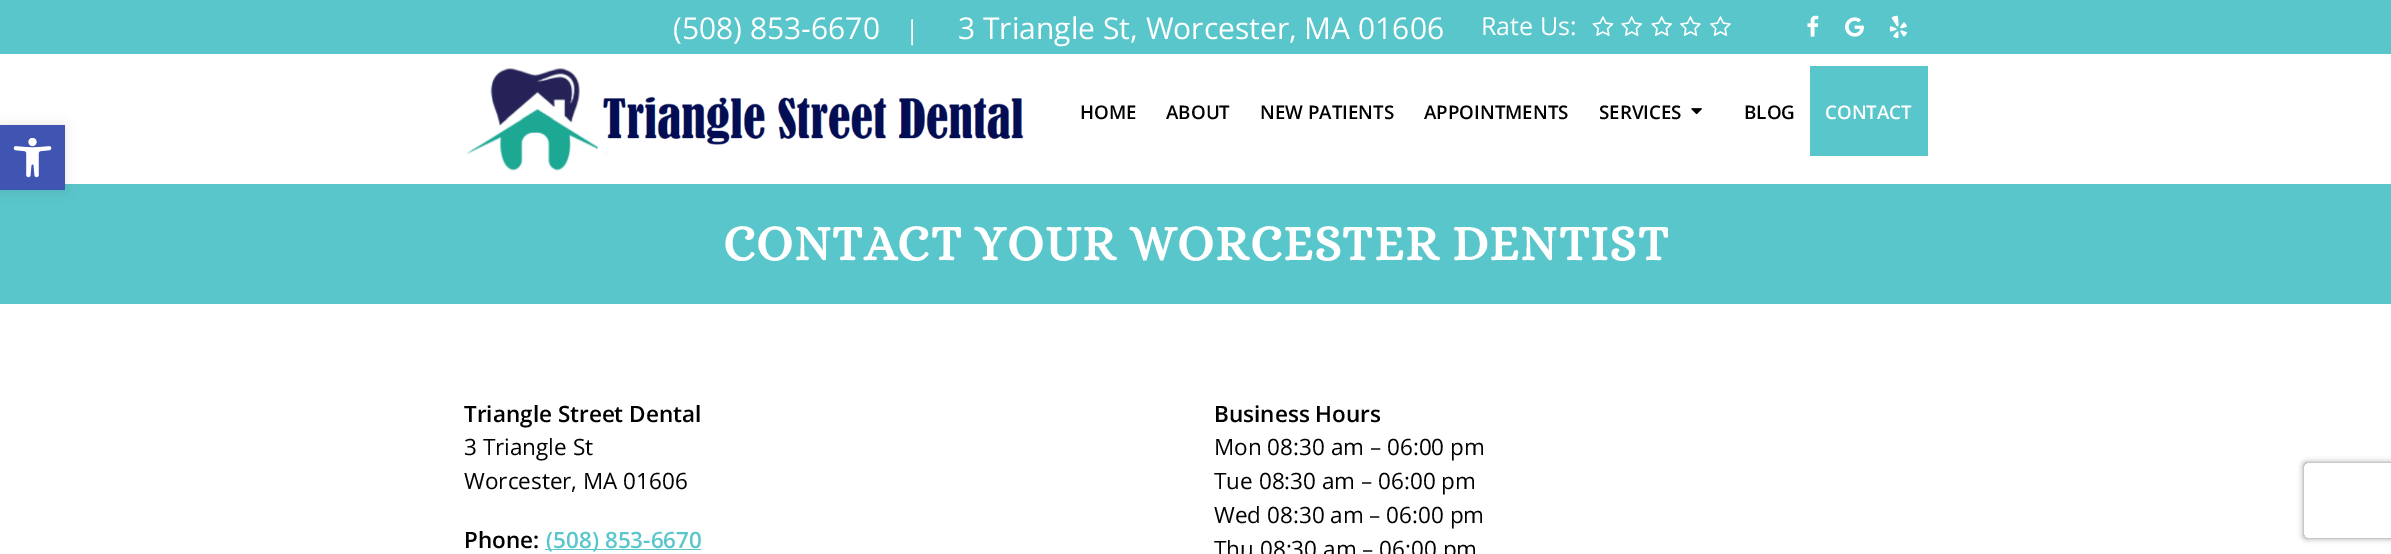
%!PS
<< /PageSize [2391 554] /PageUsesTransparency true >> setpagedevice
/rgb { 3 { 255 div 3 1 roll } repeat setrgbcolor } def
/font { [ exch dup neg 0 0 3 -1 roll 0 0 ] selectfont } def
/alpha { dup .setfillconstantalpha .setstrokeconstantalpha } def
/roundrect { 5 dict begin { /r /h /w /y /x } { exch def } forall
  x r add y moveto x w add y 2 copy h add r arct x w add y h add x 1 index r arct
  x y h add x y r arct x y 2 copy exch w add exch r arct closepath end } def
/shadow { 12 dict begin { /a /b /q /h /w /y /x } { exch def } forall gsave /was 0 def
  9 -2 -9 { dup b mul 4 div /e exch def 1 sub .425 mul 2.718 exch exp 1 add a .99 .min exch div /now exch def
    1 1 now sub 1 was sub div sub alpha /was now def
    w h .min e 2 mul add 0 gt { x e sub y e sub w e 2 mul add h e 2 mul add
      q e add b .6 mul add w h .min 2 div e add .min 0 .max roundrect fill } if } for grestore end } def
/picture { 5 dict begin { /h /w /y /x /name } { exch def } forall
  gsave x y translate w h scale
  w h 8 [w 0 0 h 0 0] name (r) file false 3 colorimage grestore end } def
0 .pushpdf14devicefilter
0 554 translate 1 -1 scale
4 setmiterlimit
255 255 255 rgb
0 0 2391 554 rectfill
89 198 203 rgb
0 184 2391 120 rectfill
0 0 0 rgb
0 125 65 65 0 6 0.1 shadow
64 84 178 rgb
0 125 65 65 rectfill
(img/1.rgb) 13 138 39 40 picture
89 198 203 rgb
0 0 2391 54 rectfill
(img/2.rgb) 1592 16 22 20 picture
(img/3.rgb) 1621 16 22 20 picture
(img/3.rgb) 1651 16 22 20 picture
(img/4.rgb) 1680 16 21 20 picture
(img/4.rgb) 1710 16 21 20 picture
(img/5.rgb) 1807 15 12 22 picture
(img/6.rgb) 1845 17 19 20 picture
(img/7.rgb) 1889 15 18 24 picture
(img/8.rgb) 466 68 558 103 picture
(img/9.rgb) 1691 108 11 7 picture
1810 66 118 90 rectfill
545 549 156 1 rectfill
gsave
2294 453 moveto 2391 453 lineto 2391 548 lineto 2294 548 lineto closepath 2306.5 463 moveto 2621.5 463 lineto 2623 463 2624 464 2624 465.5 curveto 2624 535.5 lineto 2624 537 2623 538 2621.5 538 curveto 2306.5 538 lineto 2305 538 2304 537 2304 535.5 curveto 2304 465.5 lineto 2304 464 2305 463 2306.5 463 curveto closepath eoclip newpath
128 128 128 rgb
2304 463 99 75 2.5 3 1 shadow
grestore
/OpenSans-Regular 30 font
255 255 255 rgb
673 39 moveto (\(508\) 853-6670) show
/OpenSans-Regular 26 font
905 39 moveto (|) show
/OpenSans-Regular 30 font
958 39 moveto (3 Triangle St, Worcester, MA 01606) show
/OpenSans-Regular 25 font
1481 35 moveto (Rate Us:) show
/OpenSans-SemiBold 18.75 font
0 0 0 rgb
[
  [(HOME) 1080 119]
  [(ABOUT) 1166 119]
  [(NEW PATIENTS) 1260 119]
  [(APPOINTMENTS) 1424 119]
  [(SERVICES) 1599 119]
  [(BLOG) 1744 119]
] { aload pop moveto show } forall
255 255 255 rgb
1825 119 moveto (CONTACT) show
/Alice-Bold 50 font
723 260 moveto 1.25 0 (CONTACT YOUR WORCESTER DENTIST) ashow
/OpenSans-SemiBold 22.5 font
0 0 0 rgb
464 422 moveto (Triangle Street Dental) show
/OpenSans-Regular 22.5 font
464 455 moveto (3 Triangle St) show
464 489 moveto (Worcester, MA 01606) show
/OpenSans-SemiBold 22.5 font
464 548 moveto (Phone:) show
89 198 203 rgb
546 548 moveto (\(508\) 853-6670) show
0 0 0 rgb
1214 422 moveto (Business Hours) show
/OpenSans-Regular 22.5 font
[
  [(Mon 08:30 am – 06:00 pm) 1214 455]
  [(Tue 08:30 am – 06:00 pm) 1214 489]
  [(Wed 08:30 am – 06:00 pm) 1214 523]
  [(Thu 08:30 am – 06:00 pm) 1214 557]
] { aload pop moveto show } forall
.poppdf14devicefilter showpage
